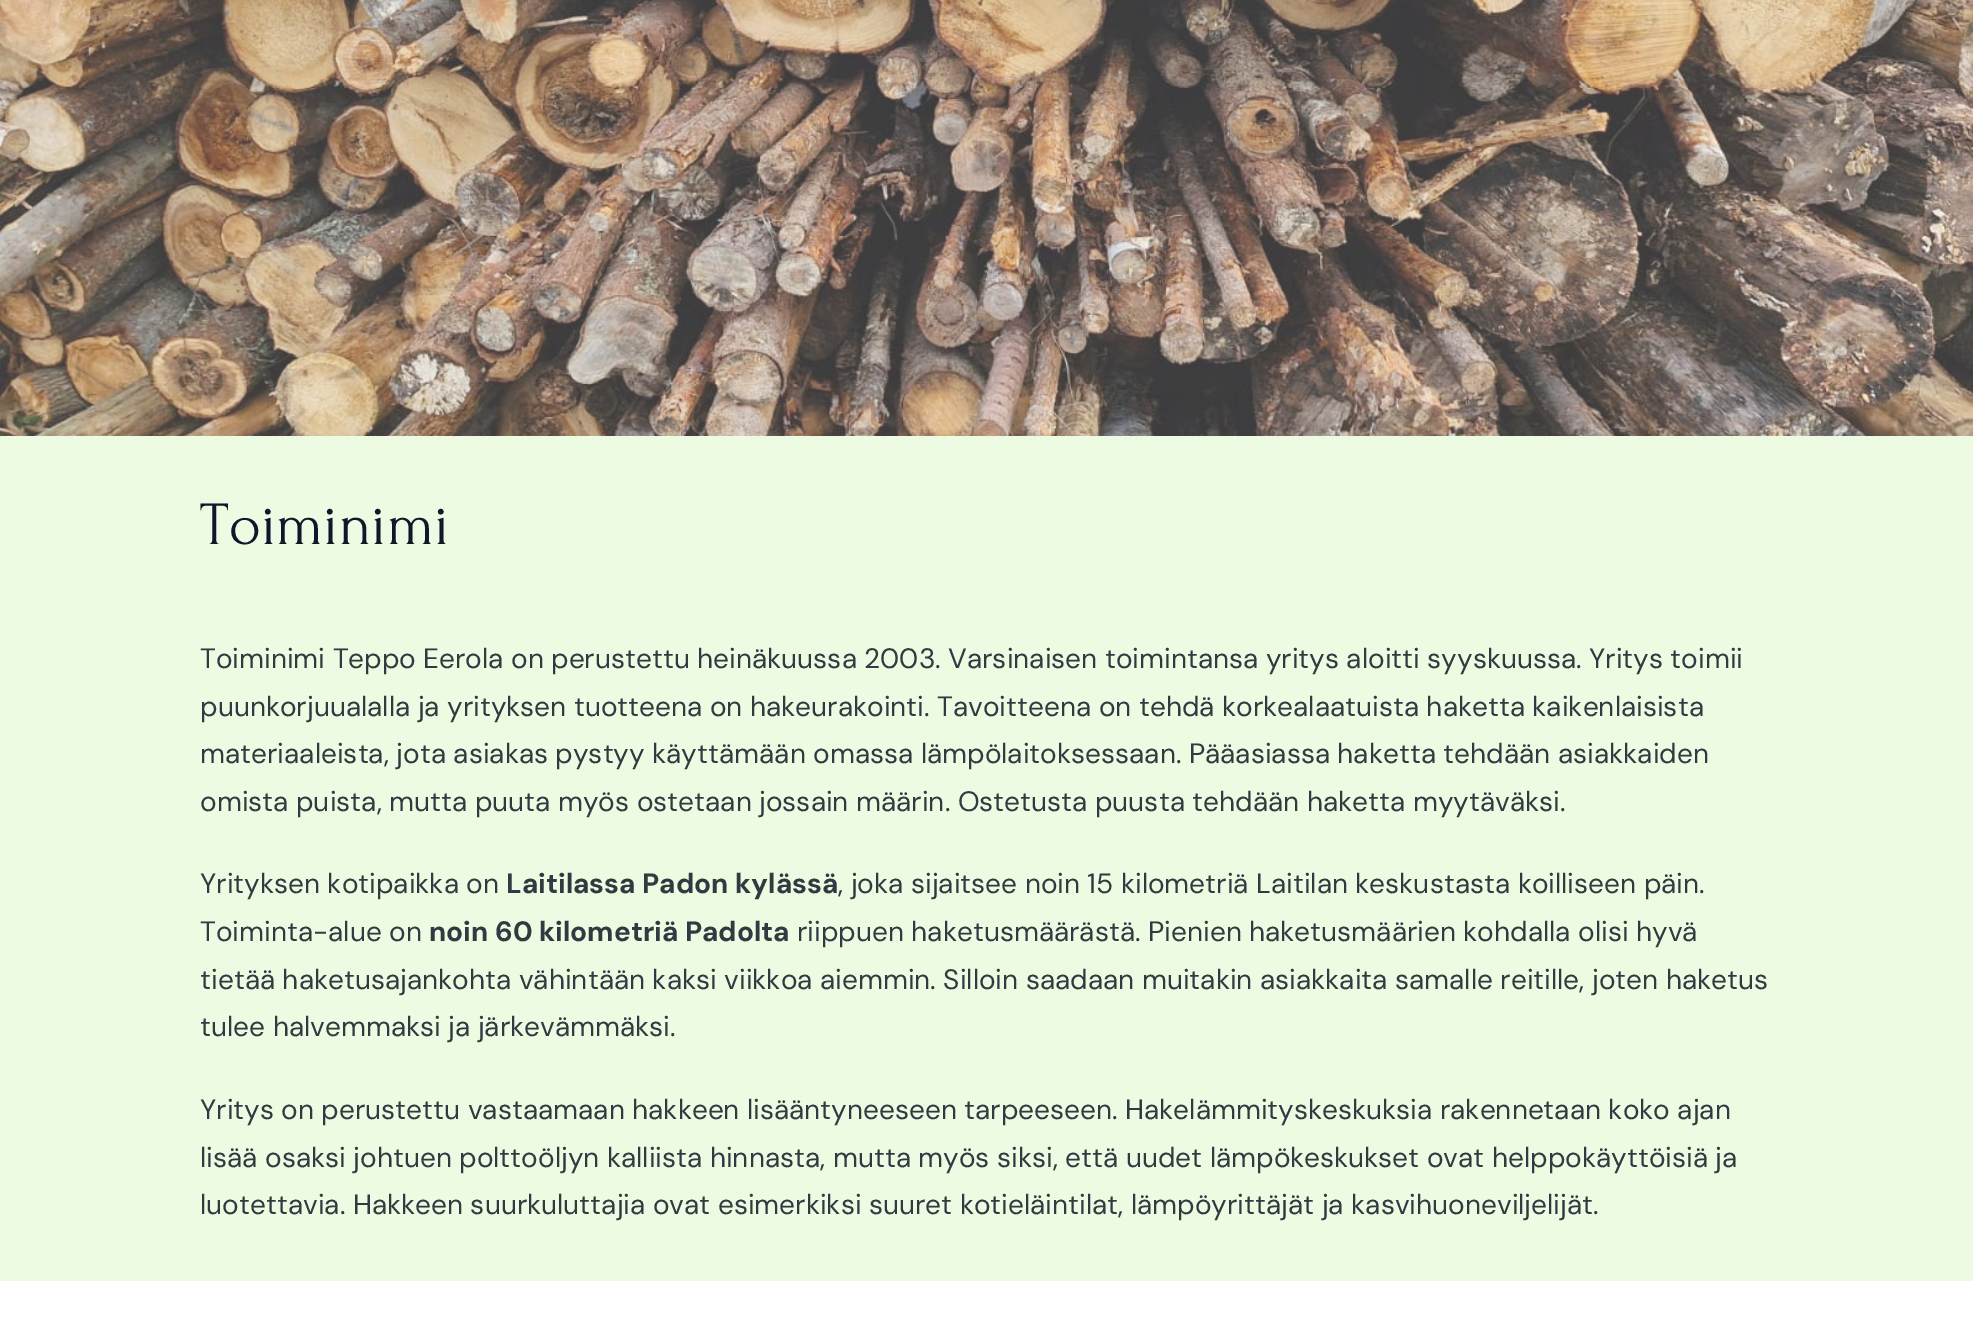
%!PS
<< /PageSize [1973 1317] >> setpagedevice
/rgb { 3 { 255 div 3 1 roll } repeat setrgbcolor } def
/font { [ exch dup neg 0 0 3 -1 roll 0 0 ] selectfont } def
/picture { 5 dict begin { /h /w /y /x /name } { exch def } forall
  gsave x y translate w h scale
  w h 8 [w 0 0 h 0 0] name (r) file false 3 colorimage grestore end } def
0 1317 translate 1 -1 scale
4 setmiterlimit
237 251 226 rgb
0 0 1973 1317 rectfill
(img/1.rgb) 0 0 1973 436 picture
255 255 255 rgb
0 1281 1973 36 rectfill
/Forum-Regular 61.25 font
15 23 42 rgb
200 544 moveto (Toiminimi) show
/DMSans-Regular 28 font
47 59 64 rgb
[
  [(Toiminimi Teppo Eerola on perustettu heinäkuussa 2003. Varsinaisen toimintansa yritys aloitti syyskuussa. Yritys toimii) 200 668]
  [(puunkorjuualalla ja yrityksen tuotteena on hakeurakointi. Tavoitteena on tehdä korkealaatuista haketta kaikenlaisista) 200 716]
  [(materiaaleista, jota asiakas pystyy käyttämään omassa lämpölaitoksessaan. Pääasiassa haketta tehdään asiakkaiden) 200 763]
  [(omista puista, mutta puuta myös ostetaan jossain määrin. Ostetusta puusta tehdään haketta myytäväksi.) 200 811]
  [(Yrityksen kotipaikka on) 200 893]
] { aload pop moveto show } forall
/DMSans-Bold 28 font
506 893 moveto (Laitilassa Padon kylässä) show
/DMSans-Regular 28 font
838 893 moveto (, joka sijaitsee noin 15 kilometriä Laitilan keskustasta koilliseen päin.) show
200 941 moveto (Toiminta-alue on) show
/DMSans-Bold 28 font
429 941 moveto (noin 60 kilometriä Padolta) show
/DMSans-Regular 28 font
[
  [(riippuen haketusmäärästä. Pienien haketusmäärien kohdalla olisi hyvä) 797 941]
  [(tietää haketusajankohta vähintään kaksi viikkoa aiemmin. Silloin saadaan muitakin asiakkaita samalle reitille, joten haketus) 200 989]
  [(tulee halvemmaksi ja järkevämmäksi.) 200 1036]
  [(Yritys on perustettu vastaamaan hakkeen lisääntyneeseen tarpeeseen. Hakelämmityskeskuksia rakennetaan koko ajan) 200 1119]
  [(lisää osaksi johtuen polttoöljyn kalliista hinnasta, mutta myös siksi, että uudet lämpökeskukset ovat helppokäyttöisiä ja) 200 1167]
  [(luotettavia. Hakkeen suurkuluttajia ovat esimerkiksi suuret kotieläintilat, lämpöyrittäjät ja kasvihuoneviljelijät.) 200 1214]
] { aload pop moveto show } forall
showpage
